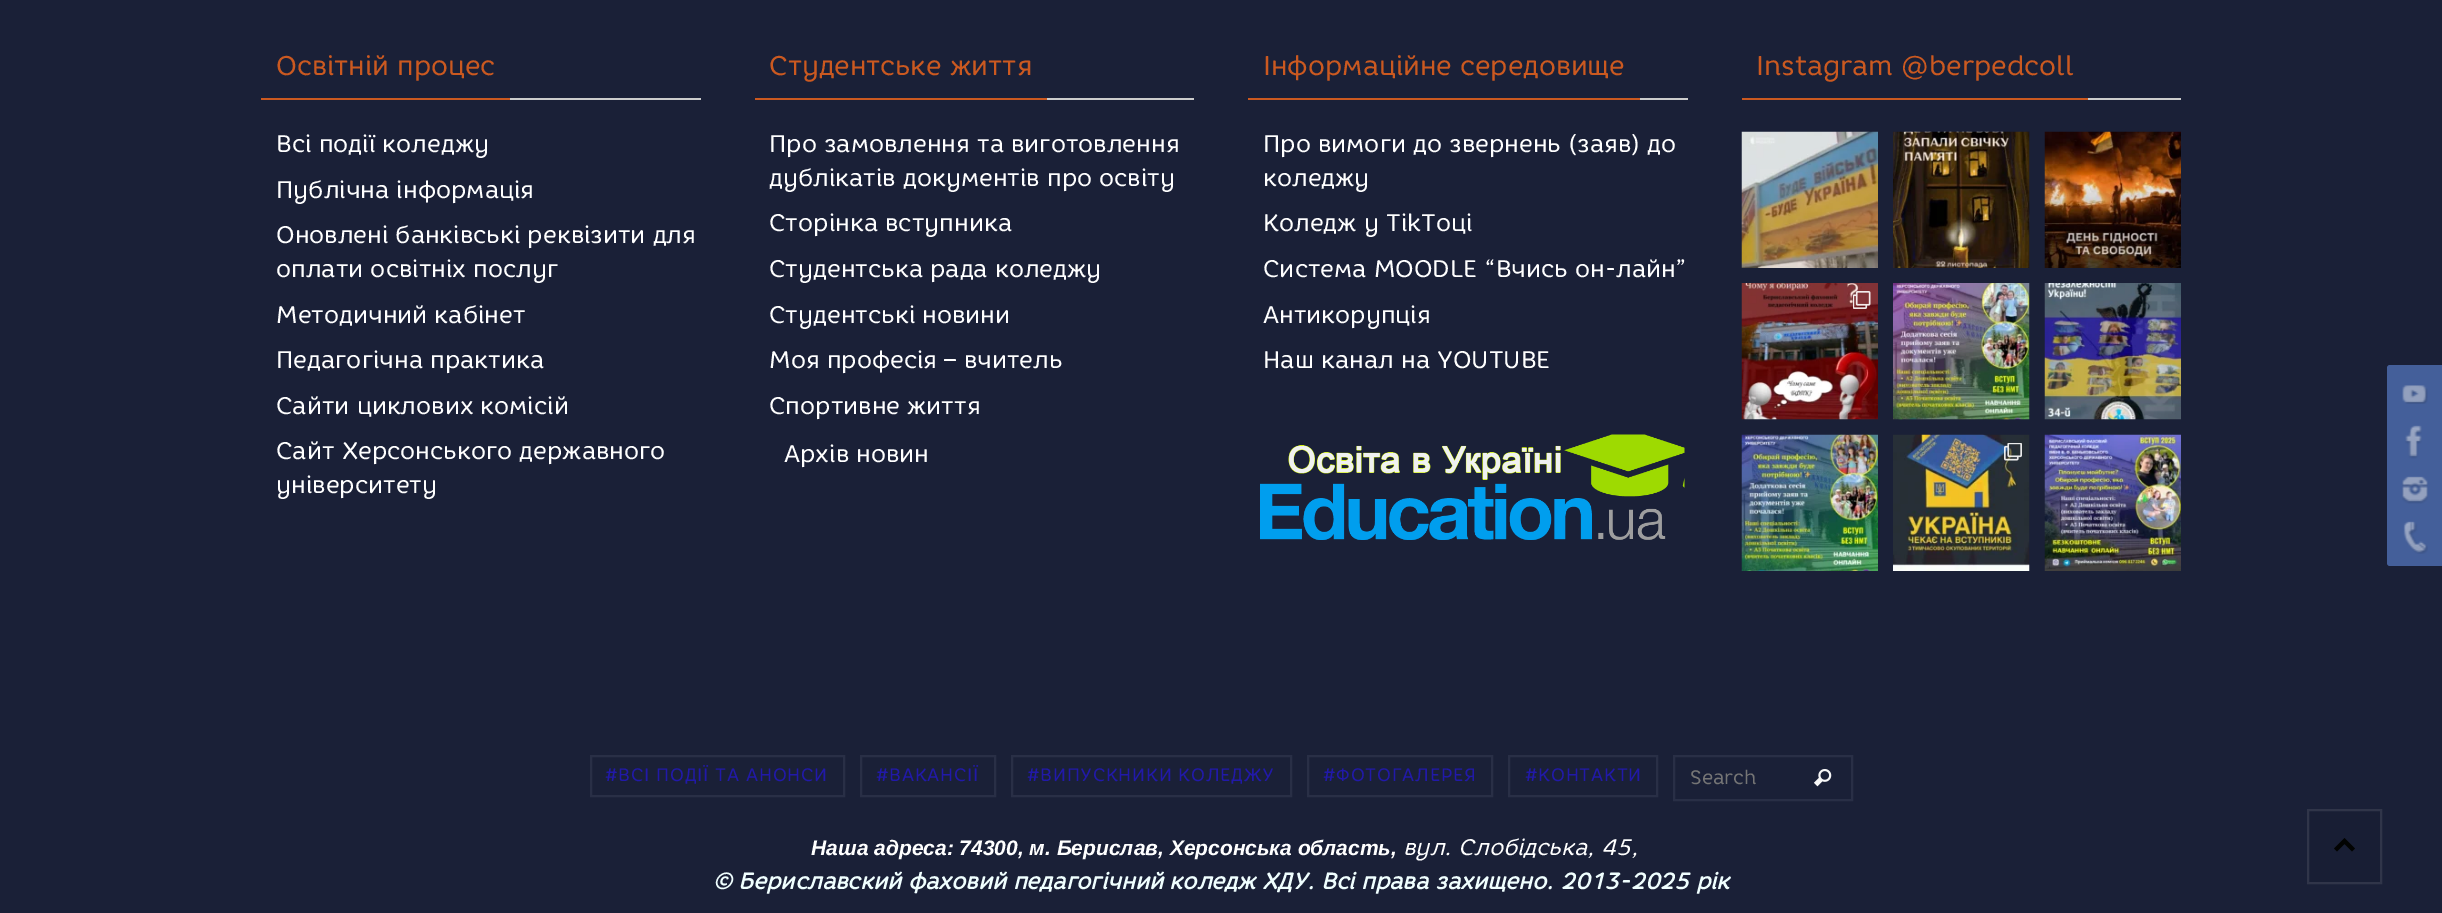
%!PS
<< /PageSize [2442 913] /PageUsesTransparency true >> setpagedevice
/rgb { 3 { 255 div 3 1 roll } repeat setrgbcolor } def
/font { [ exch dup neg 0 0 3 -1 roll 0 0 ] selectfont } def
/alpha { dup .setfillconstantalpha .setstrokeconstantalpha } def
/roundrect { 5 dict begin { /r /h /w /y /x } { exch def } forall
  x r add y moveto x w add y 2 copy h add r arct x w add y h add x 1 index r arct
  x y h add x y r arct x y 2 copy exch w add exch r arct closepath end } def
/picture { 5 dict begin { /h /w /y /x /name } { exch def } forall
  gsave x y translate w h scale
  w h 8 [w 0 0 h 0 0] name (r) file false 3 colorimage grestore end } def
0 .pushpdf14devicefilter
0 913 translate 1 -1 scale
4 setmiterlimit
26 32 55 rgb
0 0 2442 913 rectfill
[
  [510 98 191 2 204 204 204]
  [261 98 249 2 203 89 32]
  [1047 98 147 2 204 204 204]
  [755 98 292 2 203 89 32]
  [1640 98 48 2 204 204 204]
  [1248 98 392 2 203 89 32]
] { aload pop rgb rectfill } forall
(img/1.rgb) 1260 434 425 106 picture
204 204 204 rgb
2088 98 93 2 rectfill
203 89 32 rgb
1742 98 346 2 rectfill
(img/2.rgb) 1741 131 137 137 picture
(img/3.rgb) 1893 131 137 137 picture
(img/4.rgb) 2044 131 137 137 picture
(img/5.rgb) 1741 283 137 137 picture
(img/6.rgb) 1853 291 18 18 picture
(img/7.rgb) 1893 283 137 137 picture
(img/8.rgb) 2044 283 137 137 picture
(img/9.rgb) 1741 434 137 137 picture
(img/10.rgb) 1893 434 137 137 picture
(img/11.rgb) 2004 443 18 18 picture
(img/12.rgb) 2044 434 137 137 picture
41 47 70 rgb
2 setlinewidth
591 756 253 40 rectstroke
861 756 134 40 rectstroke
1012 756 279 40 rectstroke
1308 756 184 40 rectstroke
1509 756 148 40 rectstroke
1674 756 178 44 rectstroke
(img/13.rgb) 1813 769 19 18 picture
0.06 alpha
0 0 0 rgb
2307 809 75 75 rectfill
0.1 alpha
255 255 255 rgb
2308 810 73 73 rectstroke
1 alpha
2 3 2 rgb
2334 848.5 moveto 2344.5 838 lineto 2355 848.5 lineto 2352 851.5 lineto 2344.5 844 lineto 2337 851.5 lineto closepath fill
68 95 154 rgb
2387 365 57 57 3 roundrect fill
(img/14.rgb) 2402 385 26 19 picture
2387 413 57 57 3 roundrect fill
(img/15.rgb) 2405 425 17 34 picture
2387 461 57 57 3 roundrect fill
(img/16.rgb) 2402 476 26 28 picture
2387 509 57 57 3 roundrect fill
(img/17.rgb) 2403 521 25 33 picture
/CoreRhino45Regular-Regular 27 font
203 89 32 rgb
276 75 moveto (Освітній процес) show
/CoreRhino45Regular-Regular 24 font
255 255 255 rgb
[
  [(Всі події коледжу) 276 152]
  [(Публічна інформація) 276 198]
  [(Оновлені банківські реквізити для) 276 243]
  [(оплати освітніх послуг) 276 277]
  [(Методичний кабінет) 276 323]
  [(Педагогічна практика) 276 368]
  [(Сайти циклових комісій) 276 414]
  [(Сайт Херсонського державного) 276 459]
  [(університету) 276 493]
] { aload pop moveto show } forall
/CoreRhino45Regular-Regular 27 font
203 89 32 rgb
769 75 moveto (Студентське життя) show
/CoreRhino45Regular-Regular 24 font
255 255 255 rgb
[
  [(Про замовлення та виготовлення) 769 152]
  [(дублікатів документів про освіту) 769 186]
  [(Сторінка вступника) 769 231]
  [(Студентська рада коледжу) 769 277]
  [(Студентські новини) 769 323]
  [(Моя професія – вчитель) 769 368]
  [(Спортивне життя) 769 414]
  [(Архів новин) 784 462]
] { aload pop moveto show } forall
/CoreRhino45Regular-Regular 27 font
203 89 32 rgb
1263 75 moveto (Інформаційне середовище) show
/CoreRhino45Regular-Regular 24 font
255 255 255 rgb
[
  [(Про вимоги до звернень \(заяв\) до) 1263 152]
  [(коледжу) 1263 186]
  [(Коледж у TikToці) 1263 231]
  [(Система MOODLE “Вчись он-лайн”) 1263 277]
  [(Антикорупція) 1263 323]
  [(Наш канал на YOUTUBE) 1263 368]
] { aload pop moveto show } forall
/CoreRhino45Regular-Regular 27 font
203 89 32 rgb
1756 75 moveto (Instagram @berpedcoll) show
/CoreRhino45Regular-Regular 18 font
33 25 169 rgb
605 781 moveto 0.75 0 (#ВСІ ПОДІЇ ТА АНОНСИ) ashow
876 781 moveto 0.75 0 (#ВАКАНСІЇ) ashow
1027 781 moveto 0.75 0 (#ВИПУСКНИКИ КОЛЕДЖУ) ashow
1323 781 moveto 0.75 0 (#ФОТОГАЛЕРЕЯ) ashow
1525 781 moveto 0.75 0 (#КОНТАКТИ) ashow
/CoreRhino45Regular-Regular 19.5 font
117 117 117 rgb
1690 784 moveto (Search) show
/LiberationSans-BoldItalic 21 font
255 255 255 rgb
811 855 moveto (Наша адреса: 74300, м. Берислав, Херсонська область,) show
/CoreRhino45Regular-Italic 22.5 font
1403 855 moveto (вул. Слобідська, 45,) show
/CoreRhino45Regular-BoldItalic 22.5 font
240 255 255 rgb
713 889 moveto (© Бериславский фаховий педагогічний коледж ХДУ. Всі права захищено. 2013-2025 рік) show
.poppdf14devicefilter showpage
